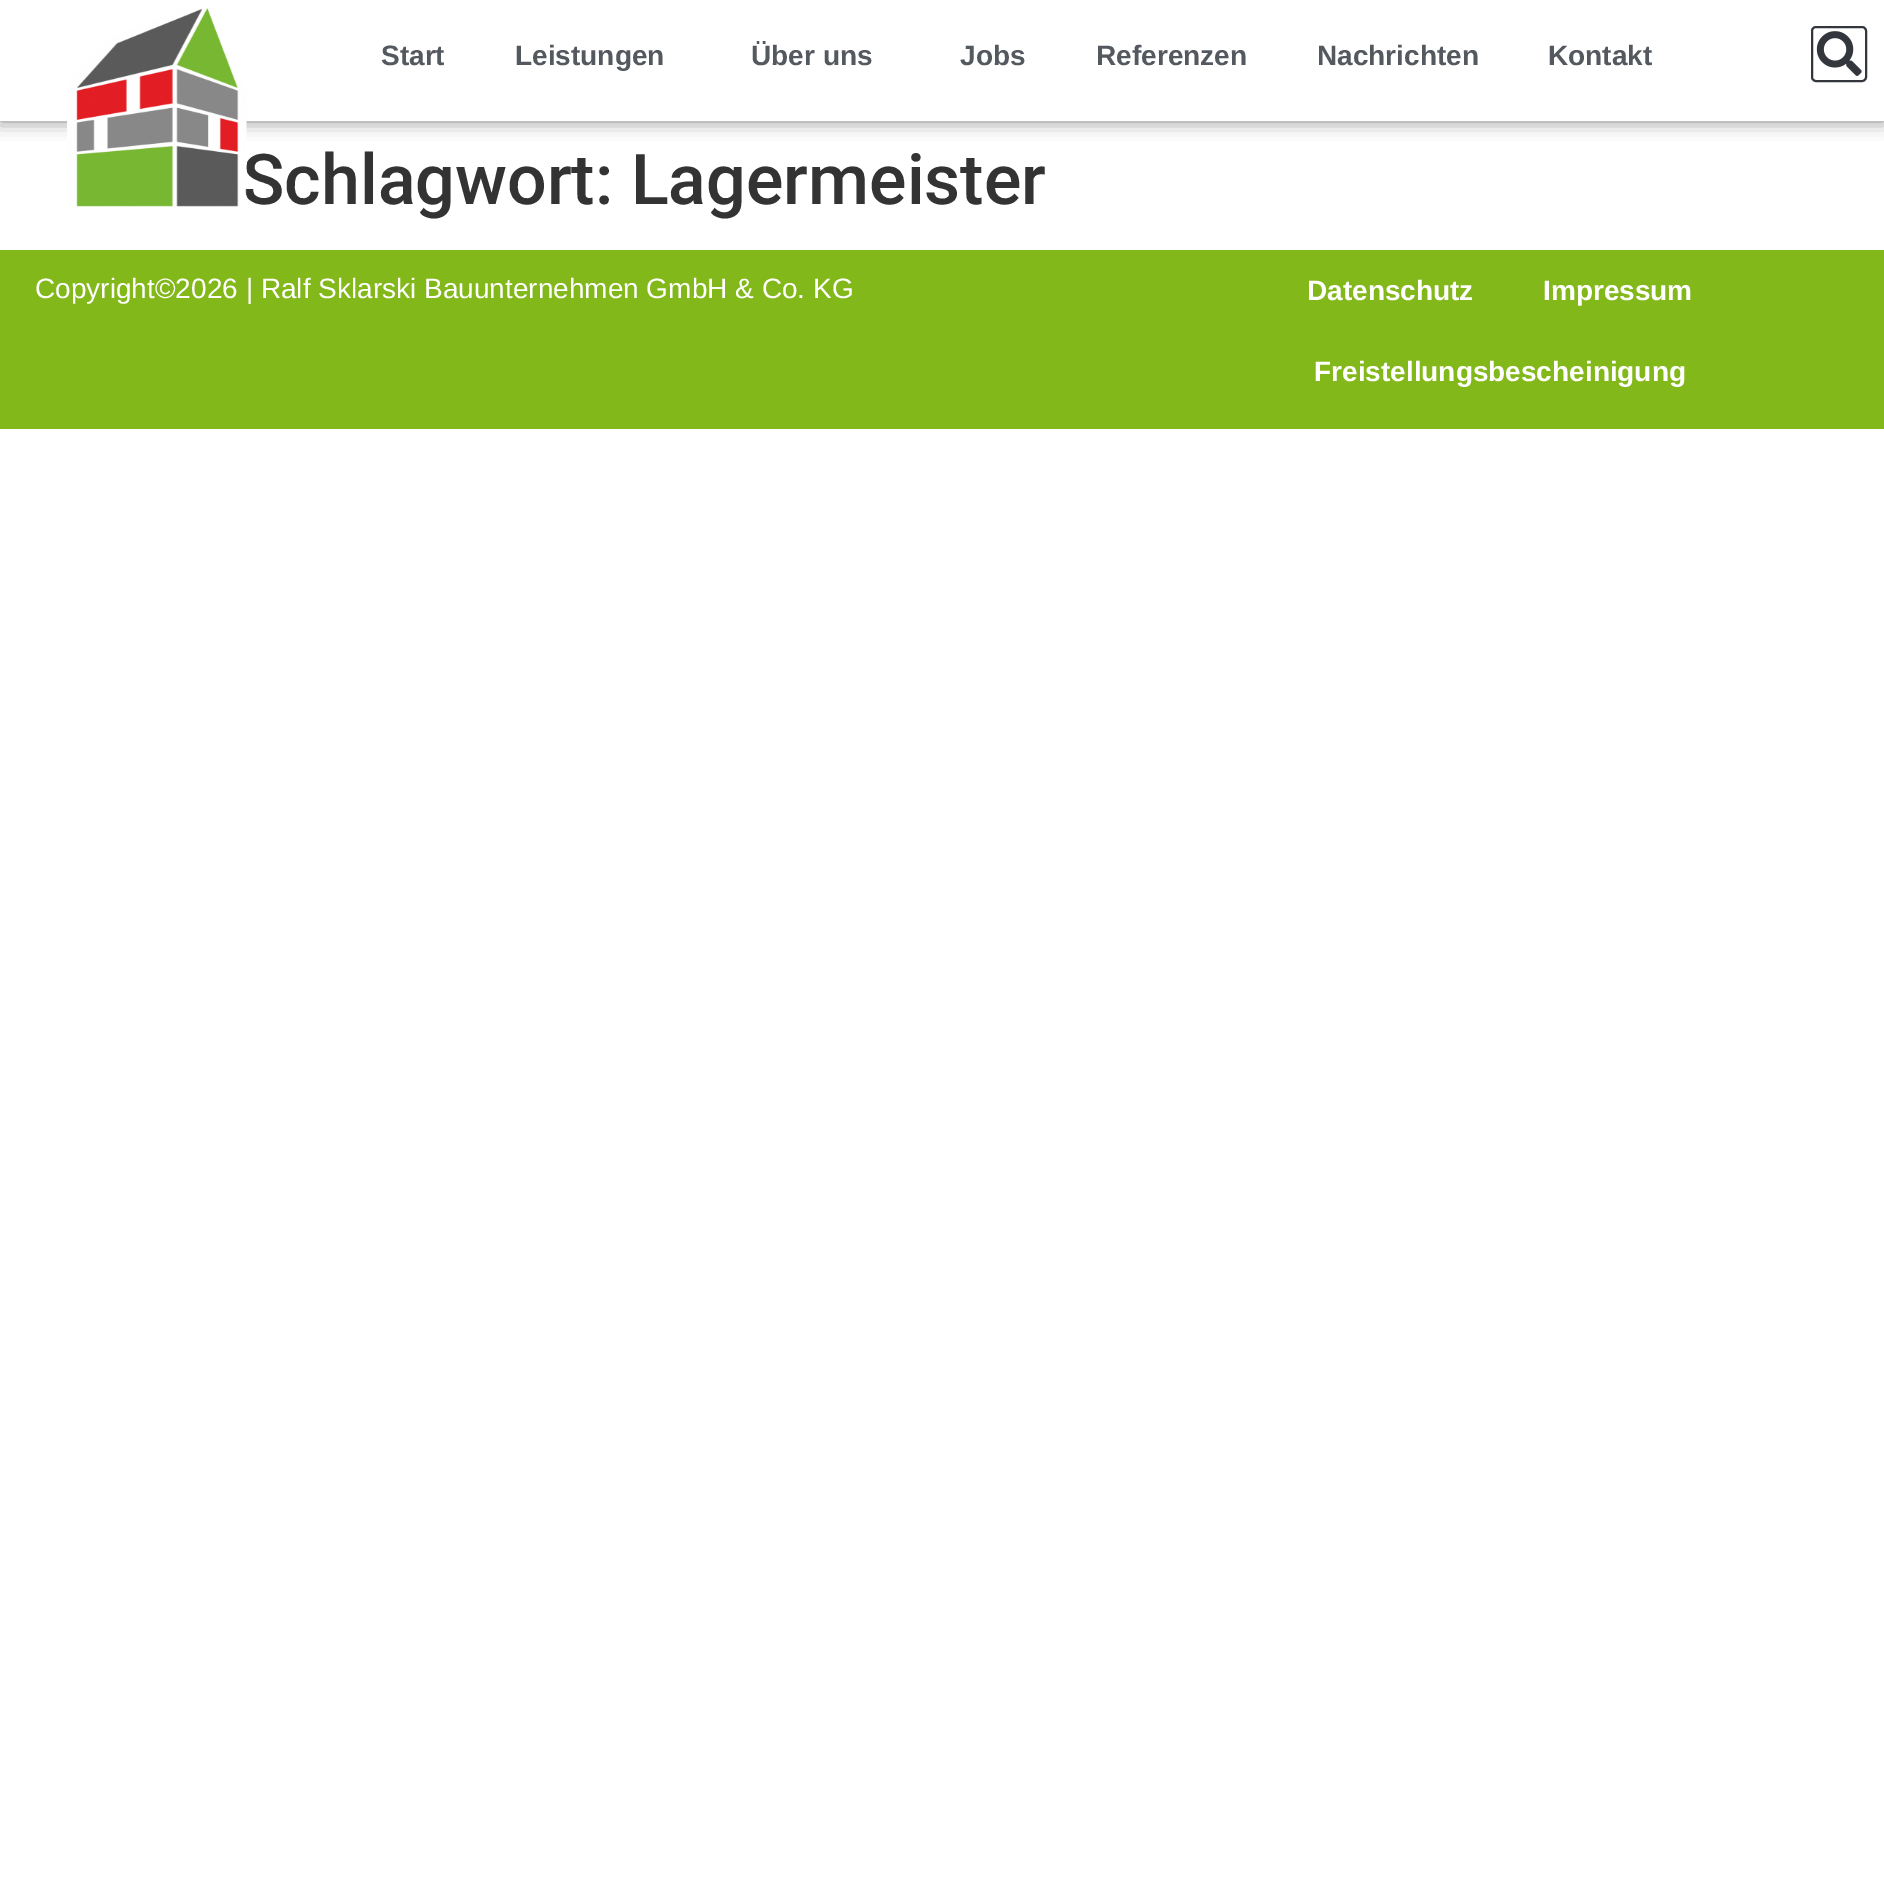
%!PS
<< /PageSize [1884 1888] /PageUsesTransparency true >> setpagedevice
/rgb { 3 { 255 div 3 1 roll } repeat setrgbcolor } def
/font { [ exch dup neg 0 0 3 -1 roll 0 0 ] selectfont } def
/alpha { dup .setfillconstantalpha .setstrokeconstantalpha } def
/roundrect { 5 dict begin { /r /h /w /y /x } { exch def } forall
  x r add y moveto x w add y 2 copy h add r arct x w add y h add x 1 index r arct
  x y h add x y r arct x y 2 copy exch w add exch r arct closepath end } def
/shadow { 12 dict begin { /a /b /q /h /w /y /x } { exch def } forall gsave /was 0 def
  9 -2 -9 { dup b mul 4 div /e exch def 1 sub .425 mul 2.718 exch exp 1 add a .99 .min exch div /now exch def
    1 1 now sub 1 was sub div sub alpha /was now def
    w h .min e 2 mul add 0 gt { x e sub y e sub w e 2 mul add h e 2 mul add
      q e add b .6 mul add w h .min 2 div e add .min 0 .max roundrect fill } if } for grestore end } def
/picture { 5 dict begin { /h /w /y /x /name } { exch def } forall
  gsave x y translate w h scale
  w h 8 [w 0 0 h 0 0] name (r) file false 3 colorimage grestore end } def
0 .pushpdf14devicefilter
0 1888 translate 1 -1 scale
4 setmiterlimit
255 255 255 rgb
0 0 1884 1888 rectfill
gsave
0 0 moveto 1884 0 lineto 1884 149 lineto 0 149 lineto closepath 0 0 moveto 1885 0 lineto 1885 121 lineto 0 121 lineto closepath eoclip newpath
0 0 0 rgb
0 0 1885 121 0 9 0.5 shadow
grestore
51 55 61 rgb
2 setlinewidth
1812 27 54 54 4 roundrect stroke
(img/2.rgb) 1816 31 46 45 picture
131 184 26 rgb
0 250 1884 179 rectfill
/LiberationSans-Bold 28 font
84 89 95 rgb
[
  [(Start) 381 65]
  [(Leistungen) 515 65]
  [(Über uns) 751 65]
  [(Jobs) 960 65]
  [(Referenzen) 1096 65]
  [(Nachrichten) 1317 65]
  [(Kontakt) 1548 65]
] { aload pop moveto show } forall
/Roboto-Medium 70 font
51 51 51 rgb
242 204 moveto (Schlagwort: Lagermeister) show
(img/1.rgb) 67 8 180 199 picture
/LiberationSans-Regular 28 font
255 255 255 rgb
35 298 moveto (Copyright©2026 | Ralf Sklarski Bauunternehmen GmbH & Co. KG) show
/LiberationSans-Bold 28 font
[
  [(Datenschutz) 1307 300]
  [(Impressum) 1543 300]
  [(Freistellungsbescheinigung) 1314 381]
] { aload pop moveto show } forall
.poppdf14devicefilter showpage
